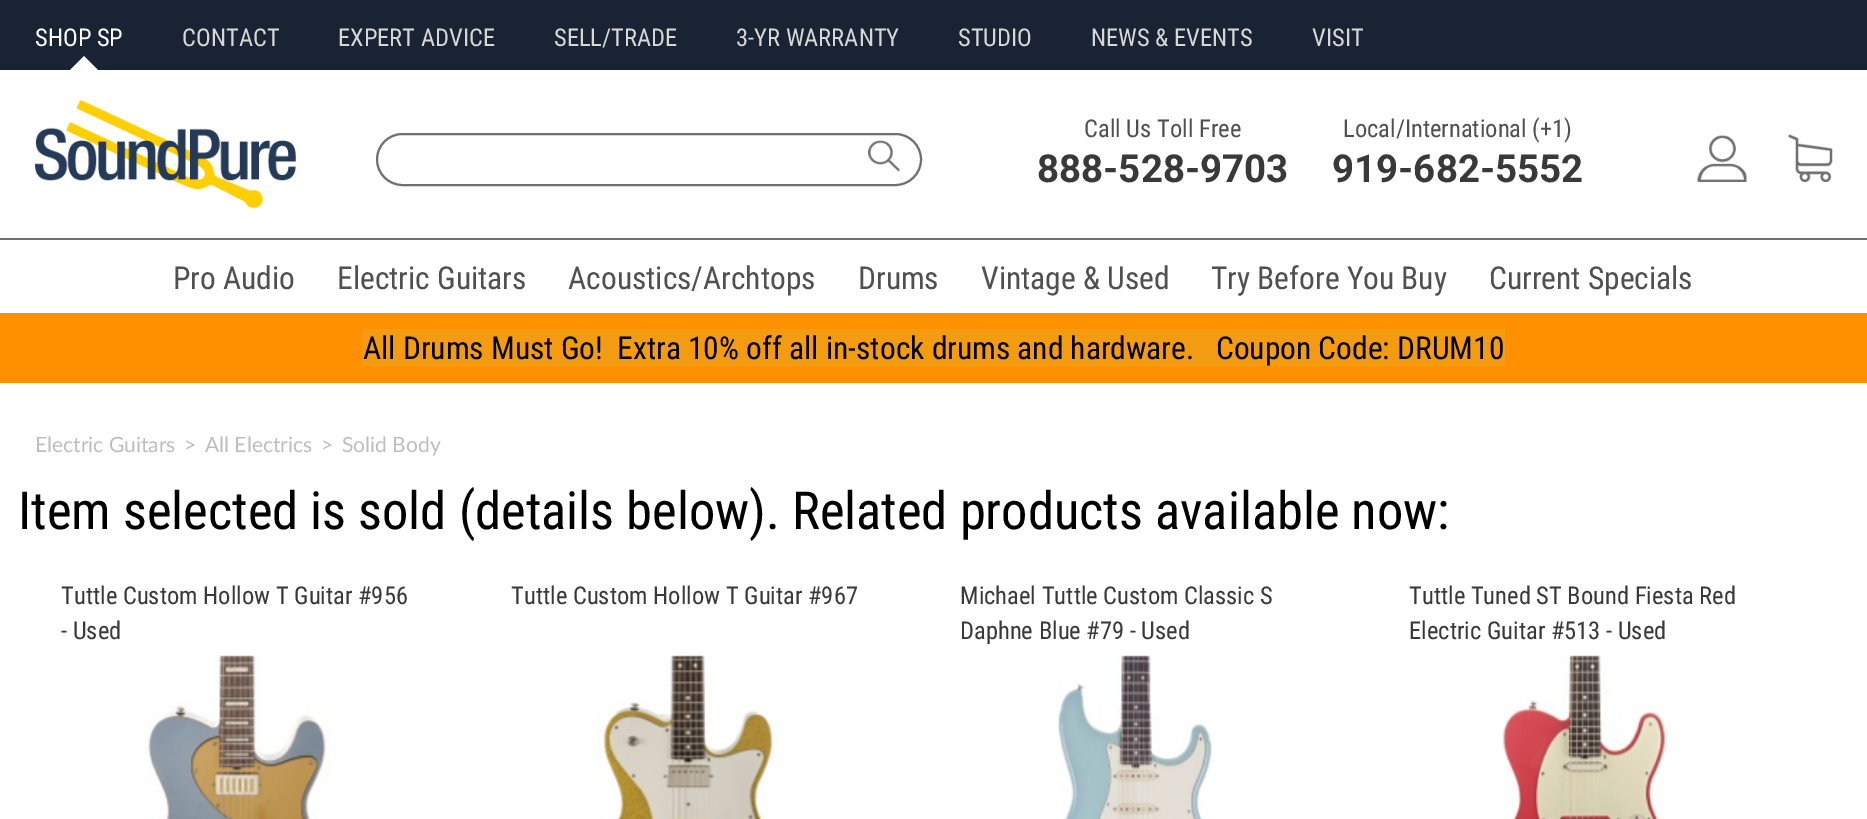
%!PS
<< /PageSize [1867 819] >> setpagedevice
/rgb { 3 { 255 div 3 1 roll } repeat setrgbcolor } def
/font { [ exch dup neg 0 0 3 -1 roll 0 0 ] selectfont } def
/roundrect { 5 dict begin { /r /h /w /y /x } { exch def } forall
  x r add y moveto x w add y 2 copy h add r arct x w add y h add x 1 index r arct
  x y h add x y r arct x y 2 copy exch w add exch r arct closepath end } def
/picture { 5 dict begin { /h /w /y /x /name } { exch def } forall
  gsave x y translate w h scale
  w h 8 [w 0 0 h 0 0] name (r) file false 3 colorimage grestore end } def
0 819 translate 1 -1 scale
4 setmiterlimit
255 255 255 rgb
0 0 1867 819 rectfill
25 35 52 rgb
0 0 1867 70 rectfill
255 255 255 rgb
98 70 moveto 70 70 lineto 84 56 lineto closepath fill
(img/1.rgb) 35 99 261 110 picture
112 112 112 rgb
2 setlinewidth
377 134 544 51 25.5 roundrect stroke
(img/2.rgb) 868 140 32 32 picture
(img/3.rgb) 1697 135 50 47 picture
(img/4.rgb) 1788 134 45 48 picture
[
  [0 238 1867 2 112 112 112]
  [0 313 1867 70 255 145 0]
  [362 329 1143 37 243 156 18]
] { aload pop rgb rectfill } forall
(img/5.rgb) 147 655 184 164 picture
(img/6.rgb) 597 655 182 164 picture
(img/7.rgb) 1057 655 158 164 picture
(img/8.rgb) 1502 655 172 164 picture
/RobotoCondensed-Regular 24.5 font
255 255 255 rgb
35 46 moveto (SHOP SP) show
215 215 215 rgb
[
  [(CONTACT) 182 46]
  [(EXPERT ADVICE) 338 46]
  [(SELL/TRADE) 554 46]
  [(3-YR WARRANTY) 736 46]
  [(STUDIO) 958 46]
  [(NEWS & EVENTS) 1091 46]
  [(VISIT) 1312 46]
] { aload pop moveto show } forall
80 80 80 rgb
1084 137 moveto (Call Us Toll Free) show
/Roboto-Bold 38.5 font
57 57 57 rgb
1037 182 moveto (888-528-9703) show
/RobotoCondensed-Regular 24.5 font
80 80 80 rgb
1343 137 moveto (Local/International \(+1\)) show
/Roboto-Bold 38.5 font
57 57 57 rgb
1332 182 moveto (919-682-5552) show
/RobotoCondensed-Regular 31.5 font
80 80 80 rgb
[
  [(Pro Audio) 173 289]
  [(Electric Guitars) 337 289]
  [(Acoustics/Archtops) 568 289]
  [(Drums) 858 289]
  [(Vintage & Used) 981 289]
  [(Try Before You Buy) 1211 289]
  [(Current Specials) 1489 289]
] { aload pop moveto show } forall
0 0 0 rgb
363 359 moveto (All Drums Must Go!  Extra 10% off all in-stock drums and hardware.   Coupon Code: DRUM10) show
/Lato-Regular 21 font
190 190 190 rgb
[
  [(Electric Guitars) 35 452]
  [(>) 184 452]
  [(All Electrics) 205 452]
  [(>) 321 452]
  [(Solid Body) 342 452]
] { aload pop moveto show } forall
/RobotoCondensed-Regular 52.5 font
0 0 0 rgb
18 529 moveto (Item selected is sold \(details below\). Related products available now:) show
/RobotoCondensed-Regular 24.5 font
57 57 57 rgb
[
  [(Tuttle Custom Hollow T Guitar #956) 61 604]
  [(- Used) 61 639]
  [(Tuttle Custom Hollow T Guitar #967) 511 604]
  [(Michael Tuttle Custom Classic S) 960 604]
  [(Daphne Blue #79 - Used) 960 639]
  [(Tuttle Tuned ST Bound Fiesta Red) 1409 604]
  [(Electric Guitar #513 - Used) 1409 639]
] { aload pop moveto show } forall
showpage
